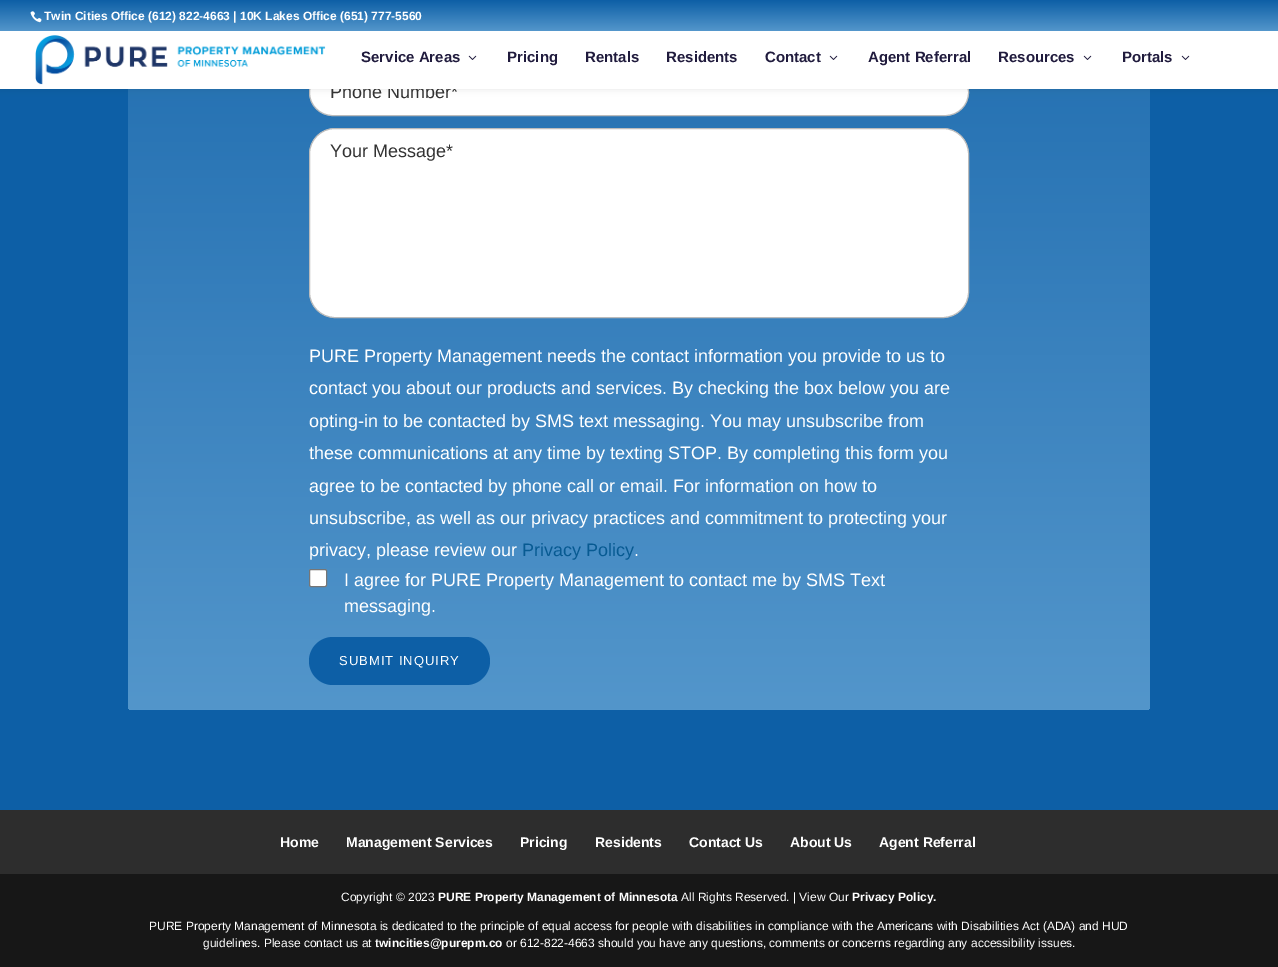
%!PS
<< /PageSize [1278 967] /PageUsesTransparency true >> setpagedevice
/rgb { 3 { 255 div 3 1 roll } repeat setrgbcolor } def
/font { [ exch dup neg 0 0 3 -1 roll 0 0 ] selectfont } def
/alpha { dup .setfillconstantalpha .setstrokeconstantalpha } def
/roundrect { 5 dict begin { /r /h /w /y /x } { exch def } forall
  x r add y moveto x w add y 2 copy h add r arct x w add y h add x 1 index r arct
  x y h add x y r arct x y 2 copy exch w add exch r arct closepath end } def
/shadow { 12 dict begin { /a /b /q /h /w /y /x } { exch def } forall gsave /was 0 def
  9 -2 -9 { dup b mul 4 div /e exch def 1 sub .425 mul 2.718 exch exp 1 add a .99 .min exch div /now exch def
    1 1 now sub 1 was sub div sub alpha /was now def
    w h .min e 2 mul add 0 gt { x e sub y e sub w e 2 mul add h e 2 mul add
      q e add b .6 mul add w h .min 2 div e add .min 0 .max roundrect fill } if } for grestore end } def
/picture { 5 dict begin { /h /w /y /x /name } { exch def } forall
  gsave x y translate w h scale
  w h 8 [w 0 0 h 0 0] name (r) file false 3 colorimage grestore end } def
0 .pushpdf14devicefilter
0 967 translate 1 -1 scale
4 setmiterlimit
45 45 45 rgb
0 0 1278 967 rectfill
13 95 166 rgb
0 89 1278 721 rectfill
gsave 128 -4 1022 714 4 roundrect clip newpath
<< /ShadingType 2 /ColorSpace /DeviceRGB /Coords [639 -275 639 710] /Extend [true true] /Function << /FunctionType 2 /Domain [0 1] /C0 [0.051 0.373 0.651] /C1 [0.325 0.588 0.796] /N 1 >> >> shfill grestore
255 255 255 rgb
309.5 69.5 659 46 23 roundrect gsave fill grestore
187 187 187 rgb
stroke
0 0 0 rgb
0 30 1278 59 0 3.5 0.1 shadow
gsave 0 0 moveto 1278 0 lineto 1278 31 lineto 0 31 lineto closepath clip newpath
<< /ShadingType 2 /ColorSpace /DeviceRGB /Coords [639 0 639 31] /Extend [true true] /Function << /FunctionType 2 /Domain [0 1] /C0 [0.051 0.373 0.651] /C1 [0.325 0.588 0.796] /N 1 >> >> shfill grestore
(img/1.rgb) 30 11 12 12 picture
255 255 255 rgb
309.5 128.5 659 189 25.5 roundrect gsave fill grestore
187 187 187 rgb
stroke
255 255 255 rgb
309.5 569.5 17 17 1.5 roundrect gsave fill grestore
118 118 118 rgb
stroke
13 95 166 rgb
309 637 181 48 24 roundrect fill
23 23 23 rgb
0 874 1278 93 rectfill
/LiberationSans-Bold 12 font
255 255 255 rgb
44 20 moveto (Twin Cities Office \(612\) 822-4663 | 10K Lakes Office \(651\) 777-5560) show
/LiberationSans-Regular 18 font
51 51 51 rgb
330 98 moveto (Phone Number*) show
255 255 255 rgb
0 31 1278 58 rectfill
(img/3.rgb) 1181 55 9 5 picture
/LiberationSans-Bold 15 font
32 27 61 rgb
1122 62 moveto (Portals) show
(img/3.rgb) 1083 55 9 5 picture
998 62 moveto (Resources) show
868 62 moveto (Agent Referral) show
(img/3.rgb) 829 55 9 5 picture
[
  [(Contact) 765 62]
  [(Residents) 666 62]
  [(Rentals) 585 62]
  [(Pricing) 507 62]
] { aload pop moveto show } forall
(img/3.rgb) 468 55 9 5 picture
361 62 moveto (Service Areas) show
(img/2.rgb) 35 35 291 50 picture
/LiberationSans-Regular 18 font
51 51 51 rgb
330 157 moveto (Your Message*) show
255 255 255 rgb
[
  [(PURE Property Management needs the contact information you provide to us to) 309 362]
  [(contact you about our products and services. By checking the box below you are) 309 394]
  [(opting-in to be contacted by SMS text messaging. You may unsubscribe from) 309 427]
  [(these communications at any time by texting STOP. By completing this form you) 309 459]
  [(agree to be contacted by phone call or email. For information on how to) 309 492]
  [(unsubscribe, as well as our privacy practices and commitment to protecting your) 309 524]
  [(privacy, please review our) 309 556]
] { aload pop moveto show } forall
7 90 146 rgb
522 556 moveto (Privacy Policy) show
255 255 255 rgb
[
  [(.) 634 556]
  [(I agree for PURE Property Management to contact me by SMS Text) 344 586]
  [(messaging.) 344 612]
] { aload pop moveto show } forall
/LiberationSans-Regular 13 font
339 665 moveto 1 0 (SUBMIT INQUIRY) ashow
/LiberationSans-Bold 14 font
[
  [(Home) 280 847]
  [(Management Services) 346 847]
  [(Pricing) 520 847]
  [(Residents) 595 847]
  [(Contact Us) 689 847]
  [(About Us) 790 847]
  [(Agent Referral) 879 847]
] { aload pop moveto show } forall
/LiberationSans-Regular 12 font
341 901 moveto (Copyright © 2023) show
/LiberationSans-Bold 12 font
438 901 moveto (PURE Property Management of Minnesota) show
/LiberationSans-Regular 12 font
681 901 moveto (All Rights Reserved. | View Our) show
/LiberationSans-Bold 12 font
852 901 moveto (Privacy Policy.) show
/LiberationSans-Regular 12 font
149 930 moveto (PURE Property Management of Minnesota is dedicated to the principle of equal access for people with disabilities in compliance with the Americans with Disabilities Act \(ADA\) and HUD) show
203 947 moveto (guidelines. Please contact us at) show
/LiberationSans-Bold 12 font
375 947 moveto (twincities@purepm.co) show
/LiberationSans-Regular 12 font
506 947 moveto (or 612-822-4663 should you have any questions, comments or concerns regarding any accessibility issues.) show
.poppdf14devicefilter showpage
